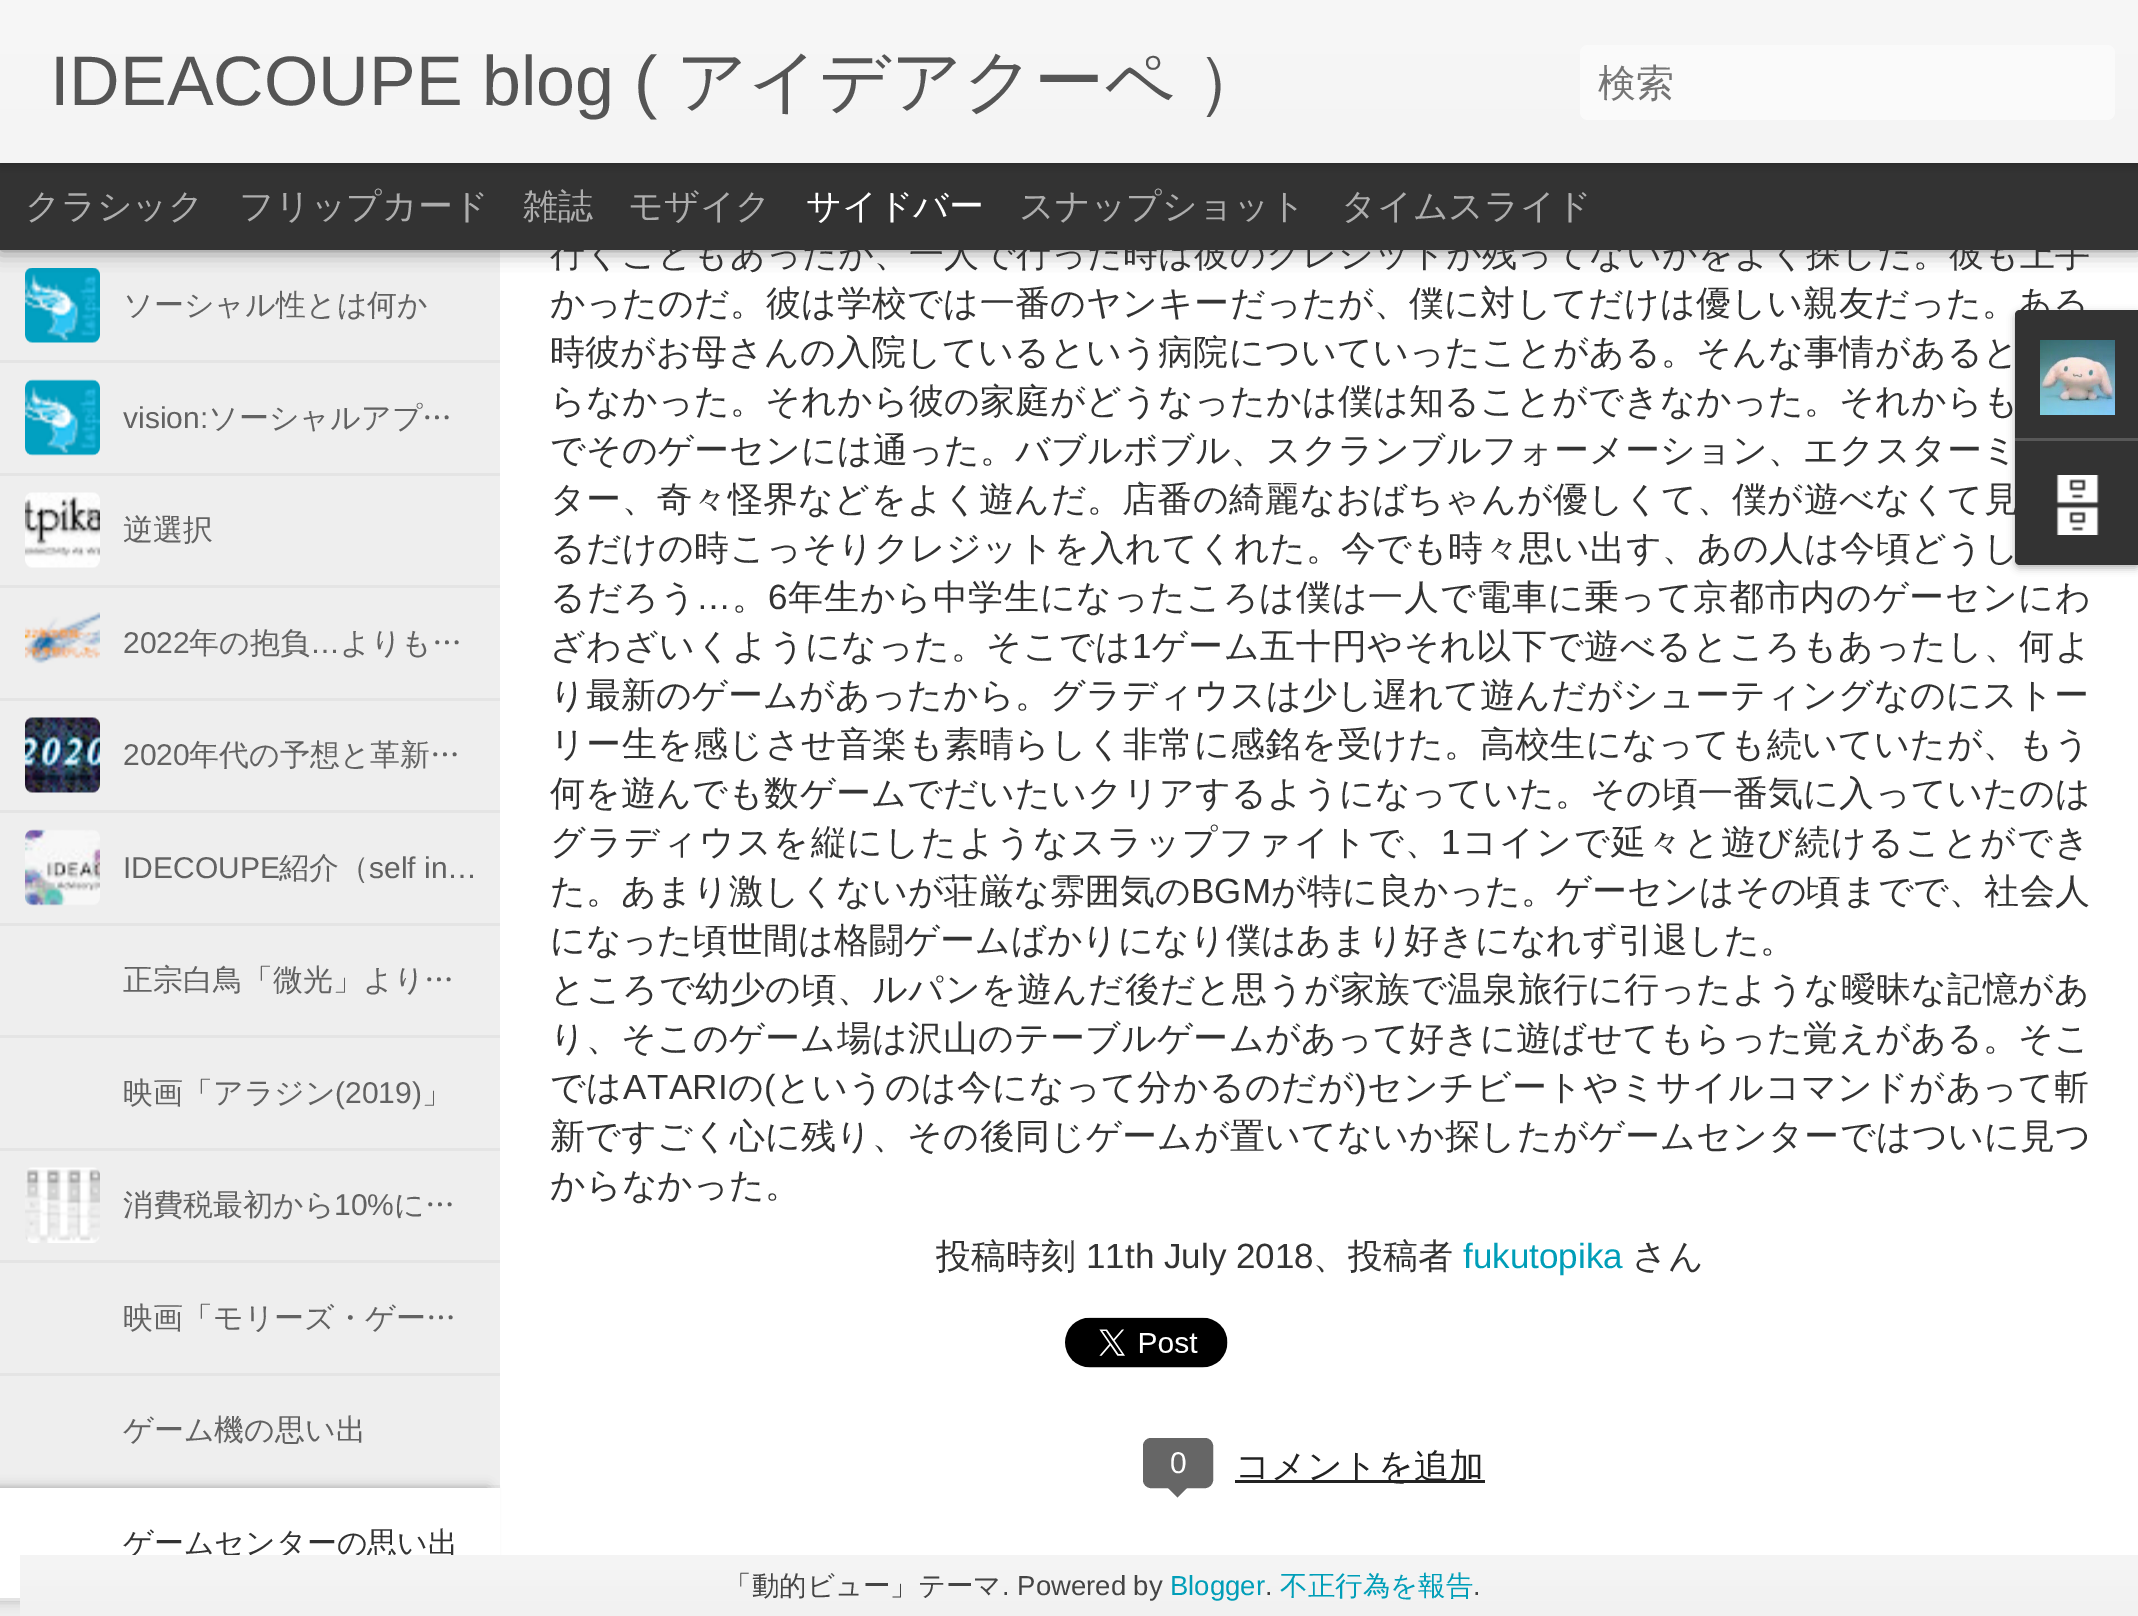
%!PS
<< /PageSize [2138 1616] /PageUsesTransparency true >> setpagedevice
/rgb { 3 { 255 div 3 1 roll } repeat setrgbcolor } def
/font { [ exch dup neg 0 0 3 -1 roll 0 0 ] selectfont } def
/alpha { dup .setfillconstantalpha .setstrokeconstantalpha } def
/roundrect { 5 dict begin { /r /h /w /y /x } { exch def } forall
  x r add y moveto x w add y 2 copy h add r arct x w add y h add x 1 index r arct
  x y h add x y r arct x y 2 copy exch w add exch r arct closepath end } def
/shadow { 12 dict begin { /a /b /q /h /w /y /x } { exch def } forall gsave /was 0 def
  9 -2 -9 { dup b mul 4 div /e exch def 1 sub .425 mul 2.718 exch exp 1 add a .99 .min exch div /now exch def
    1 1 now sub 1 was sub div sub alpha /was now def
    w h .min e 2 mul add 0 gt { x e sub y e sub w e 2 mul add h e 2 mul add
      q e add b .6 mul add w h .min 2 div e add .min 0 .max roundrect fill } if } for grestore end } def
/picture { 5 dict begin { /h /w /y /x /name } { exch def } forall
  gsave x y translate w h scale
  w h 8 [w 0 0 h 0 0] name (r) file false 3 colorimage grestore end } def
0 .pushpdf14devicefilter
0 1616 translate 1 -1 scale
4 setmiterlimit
255 255 255 rgb
0 0 2138 1616 rectfill
238 238 238 rgb
0 250 500 1366 rectfill
(img/1.rgb) 25 268 75 75 picture
0 0 0 rgb
0 163 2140 87 0 10 0.5 shadow
51 51 51 rgb
0 163 2138 87 rectfill
0 0 0 rgb
0 0 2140 163 0 6 0.3 shadow
gsave 0 0 moveto 2138 0 lineto 2138 163 lineto 0 163 lineto closepath clip newpath
<< /ShadingType 2 /ColorSpace /DeviceRGB /Coords [0 0 0 163] /Extend [true true] /Function << /FunctionType 2 /Domain [0 1] /C0 [0.969 0.969 0.969] /C1 [0.957 0.957 0.957] /N 1 >> >> shfill grestore
250 250 250 rgb
1580 45 535 75 8 roundrect fill
228 228 228 rgb
0 360 500 3 rectfill
0 473 500 3 rectfill
(img/2.rgb) 25 379 75 77 picture
0 585 500 3 rectfill
(img/3.rgb) 25 492 75 76 picture
0 698 500 3 rectfill
(img/4.rgb) 25 612 75 52 picture
0 810 500 3 rectfill
(img/5.rgb) 25 717 75 76 picture
0 923 500 3 rectfill
(img/6.rgb) 25 829 75 77 picture
[
  [0 1035 500 3 228 228 228]
  [0 1148 500 3 228 228 228]
  [0 1260 500 3 228 228 228]
] { aload pop rgb rectfill } forall
(img/7.rgb) 25 1167 75 76 picture
0 1373 500 3 rectfill
0 1485 500 3 rectfill
170 170 170 rgb
-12 1488 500 112 0 6 1 shadow
255 255 255 rgb
0 1488 500 110 rectfill
228 228 228 rgb
0 1598 20 3 rectfill
(img/8.rgb) 1065 1317 163 51 picture
102 102 102 rgb
1144.5 1439.5 67 47 6.5 roundrect gsave fill grestore
3 setlinewidth
stroke
1165 1485 moveto 1190 1485 lineto 1177.5 1497.5 lineto closepath fill
34 34 34 rgb
1235 1480 250 3 rectfill
0 0 0 rgb
2015 313 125 255 5 4 0.3 shadow
51 51 51 rgb
2020 310 moveto 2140 310 lineto 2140 438 lineto 2015 438 lineto 2015 315 lineto 2015 312 2017 310 2020 310 curveto closepath fill
(img/9.rgb) 2040 340 75 75 picture
2015 438 moveto 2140 438 lineto 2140 565 lineto 2020 565 lineto 2017 565 2015 563 2015 560 curveto closepath fill
88 88 88 rgb
2015 438 123 3 rectfill
(img/10.rgb) 2056 475 43 60 picture
/LiberationSans-Regular 70 font
85 85 85 rgb
50 105 moveto (IDEACOUPE blog \() show
/WenQuanYiZenHei-Medium 70 font
676 105 moveto (アイデアクーペ) show
1196 105 moveto (）) show
/WenQuanYiZenHei-Medium 38 font
117 117 117 rgb
1598 96 moveto (検索) show
/WenQuanYiZenHei-Medium 35 font
173 173 173 rgb
[
  [(クラシック) 25 218]
  [(フリップカード) 239 218]
  [(雑誌) 523 218]
  [(モザイク) 628 218]
] { aload pop moveto show } forall
255 255 255 rgb
806 218 moveto (サイドバー) show
173 173 173 rgb
1019 218 moveto (スナップショット) show
1341 218 moveto (タイムスライド) show
/WenQuanYiZenHei-Medium 30 font
98 98 98 rgb
123 315 moveto (ソーシャル性とは何か) show
/LiberationSans-Regular 30 font
123 428 moveto (vision:) show
/WenQuanYiZenHei-Medium 30 font
208 428 moveto (ソーシャルアプ…) show
123 540 moveto (逆選択) show
/LiberationSans-Regular 30 font
123 653 moveto (2022) show
/WenQuanYiZenHei-Medium 30 font
189 653 moveto (年の抱負) show
/LiberationSans-Regular 30 font
310 653 moveto (…) show
/WenQuanYiZenHei-Medium 30 font
340 653 moveto (よりも…) show
/LiberationSans-Regular 30 font
123 765 moveto (2020) show
/WenQuanYiZenHei-Medium 30 font
189 765 moveto (年代の予想と革新…) show
/LiberationSans-Regular 30 font
123 878 moveto (IDECOUPE) show
/WenQuanYiZenHei-Medium 30 font
279 878 moveto (紹介（) show
/LiberationSans-Regular 30 font
369 878 moveto (self in…) show
/WenQuanYiZenHei-Medium 30 font
123 990 moveto (正宗白鳥「微光」より…) show
123 1103 moveto (映画「アラジン) show
/LiberationSans-Regular 30 font
335 1103 moveto (\(2019\)) show
/WenQuanYiZenHei-Medium 30 font
422 1103 moveto (」) show
123 1215 moveto (消費税最初から) show
/LiberationSans-Regular 30 font
334 1215 moveto (10%) show
/WenQuanYiZenHei-Medium 30 font
[
  [(に…) 394 1215]
  [(映画「モリーズ・ゲー…) 123 1328]
  [(ゲーム機の思い出) 123 1440]
] { aload pop moveto show } forall
51 51 51 rgb
123 1553 moveto (ゲームセンターの思い出) show
/WenQuanYiZenHei-Medium 35 font
550 266 moveto 0.25 0 (行くこともあったが、一人で行った時は彼のクレジットが残ってないかをよく探した。彼も上手) ashow
550 315 moveto 0.25 0 (かったのだ。彼は学校では一番のヤンキーだったが、僕に対してだけは優しい親友だった。ある) ashow
550 364 moveto 0.2 0 (時彼がお母さんの入院しているという病院についていったことがある。そんな事情があると) ashow
550 413 moveto 0.15 0 (らなかった。それから彼の家庭がどうなったかは僕は知ることができなかった。それからも) ashow
550 462 moveto 0.15 0 (でそのゲーセンには通った。バブルボブル、スクランブルフォーメーション、エクスターミ) ashow
550 511 moveto 0.35 0 (ター、奇々怪界などをよく遊んだ。店番の綺麗なおばちゃんが優しくて、僕が遊べなくて見) ashow
550 560 moveto 0.25 0 (るだけの時こっそりクレジットを入れてくれた。今でも時々思い出す、あの人は今頃どうし) ashow
550 609 moveto 0.75 0 (るだろう) ashow
/LiberationSans-Regular 35 font
696 609 moveto 0.75 0 (…) ashow
/WenQuanYiZenHei-Medium 35 font
732 609 moveto 0.75 0 (。) ashow
/LiberationSans-Regular 35 font
768 609 moveto 0.75 0 (6) ashow
/WenQuanYiZenHei-Medium 35 font
788 609 moveto 0.75 0 (年生から中学生になったころは僕は一人で電車に乗って京都市内のゲーセンにわ) ashow
550 658 moveto 0.6 0 (ざわざいくようになった。そこでは) ashow
/LiberationSans-Regular 35 font
1132 658 moveto 0.6 0 (1) ashow
/WenQuanYiZenHei-Medium 35 font
1152 658 moveto 0.6 0 (ゲーム五十円やそれ以下で遊べるところもあったし、何よ) ashow
550 707 moveto 0.15 0 (り最新のゲームがあったから。グラディウスは少し遅れて遊んだがシューティングなのにストー) ashow
550 756 moveto 0.35 0 (リー生を感じさせ音楽も素晴らしく非常に感銘を受けた。高校生になっても続いていたが、もう) ashow
550 805 moveto 0.2 0 (何を遊んでも数ゲームでだいたいクリアするようになっていた。その頃一番気に入っていたのは) ashow
550 854 moveto 1.4 0 (グラディウスを縦にしたようなスラップファイトで、) ashow
/LiberationSans-Regular 35 font
1441 854 moveto 1.4 0 (1) ashow
/WenQuanYiZenHei-Medium 35 font
1462 854 moveto 1.4 0 (コインで延々と遊び続けることができ) ashow
550 903 moveto 0.1 0 (た。あまり激しくないが荘厳な雰囲気の) ashow
/LiberationSans-Regular 35 font
1191 903 moveto 0.1 0 (BGM) ashow
/WenQuanYiZenHei-Medium 35 font
1271 903 moveto 0.1 0 (が特に良かった。ゲーセンはその頃までで、社会人) ashow
550 952 moveto (になった頃世間は格闘ゲームばかりになり僕はあまり好きになれず引退した。) show
550 1001 moveto 0.35 0 (ところで幼少の頃、ルパンを遊んだ後だと思うが家族で温泉旅行に行ったような曖昧な記憶があ) ashow
550 1050 moveto 0.2 0 (り、そこのゲーム場は沢山のテーブルゲームがあって好きに遊ばせてもらった覚えがある。そこ) ashow
550 1099 moveto 0.4 0 (では) ashow
/LiberationSans-Regular 35 font
623 1099 moveto 0.4 0 (ATARI) ashow
/WenQuanYiZenHei-Medium 35 font
728 1099 moveto 0.4 0 (の) ashow
/LiberationSans-Regular 35 font
764 1099 moveto 0.4 0 (\() ashow
/WenQuanYiZenHei-Medium 35 font
776 1099 moveto 0.4 0 (というのは今になって分かるのだが) ashow
/LiberationSans-Regular 35 font
1355 1099 moveto 0.4 0 (\)) ashow
/WenQuanYiZenHei-Medium 35 font
1367 1099 moveto 0.4 0 (センチビートやミサイルコマンドがあって斬) ashow
550 1148 moveto 0.25 0 (新ですごく心に残り、その後同じゲームが置いてないか探したがゲームセンターではついに見つ) ashow
550 1197 moveto (からなかった。) show
936 1268 moveto (投稿時刻) show
/LiberationSans-Regular 35 font
1086 1268 moveto (11th July 2018) show
/WenQuanYiZenHei-Medium 35 font
1313 1268 moveto (、投稿者) show
/LiberationSans-Regular 35 font
0 158 184 rgb
1463 1268 moveto (fukutopika) show
/WenQuanYiZenHei-Medium 35 font
51 51 51 rgb
1632 1268 moveto (さん) show
/LiberationSans-Regular 30 font
255 255 255 rgb
1170 1473 moveto (0) show
/WenQuanYiZenHei-Medium 35 font
34 34 34 rgb
1235 1478 moveto (コメントを追加) show
gsave 20 1555 moveto 2138 1555 lineto 2138 1616 lineto 20 1616 lineto closepath clip newpath
<< /ShadingType 2 /ColorSpace /DeviceRGB /Coords [1103 1555 1103 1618] /Extend [true true] /Function << /FunctionType 2 /Domain [0 1] /C0 [0.961 0.961 0.961] /C1 [0.945 0.945 0.945] /N 1 >> >> shfill grestore
/WenQuanYiZenHei-Medium 27.5 font
68 68 68 rgb
724 1595 moveto (「動的ビュー」テーマ) show
/LiberationSans-Regular 27.5 font
1002 1595 moveto (. Powered by) show
0 158 184 rgb
1170 1595 moveto (Blogger) show
68 68 68 rgb
1265 1595 moveto (.) show
/WenQuanYiZenHei-Medium 27.5 font
0 158 184 rgb
1280 1595 moveto (不正行為を報告) show
/LiberationSans-Regular 27.5 font
68 68 68 rgb
1473 1595 moveto (.) show
.poppdf14devicefilter showpage
